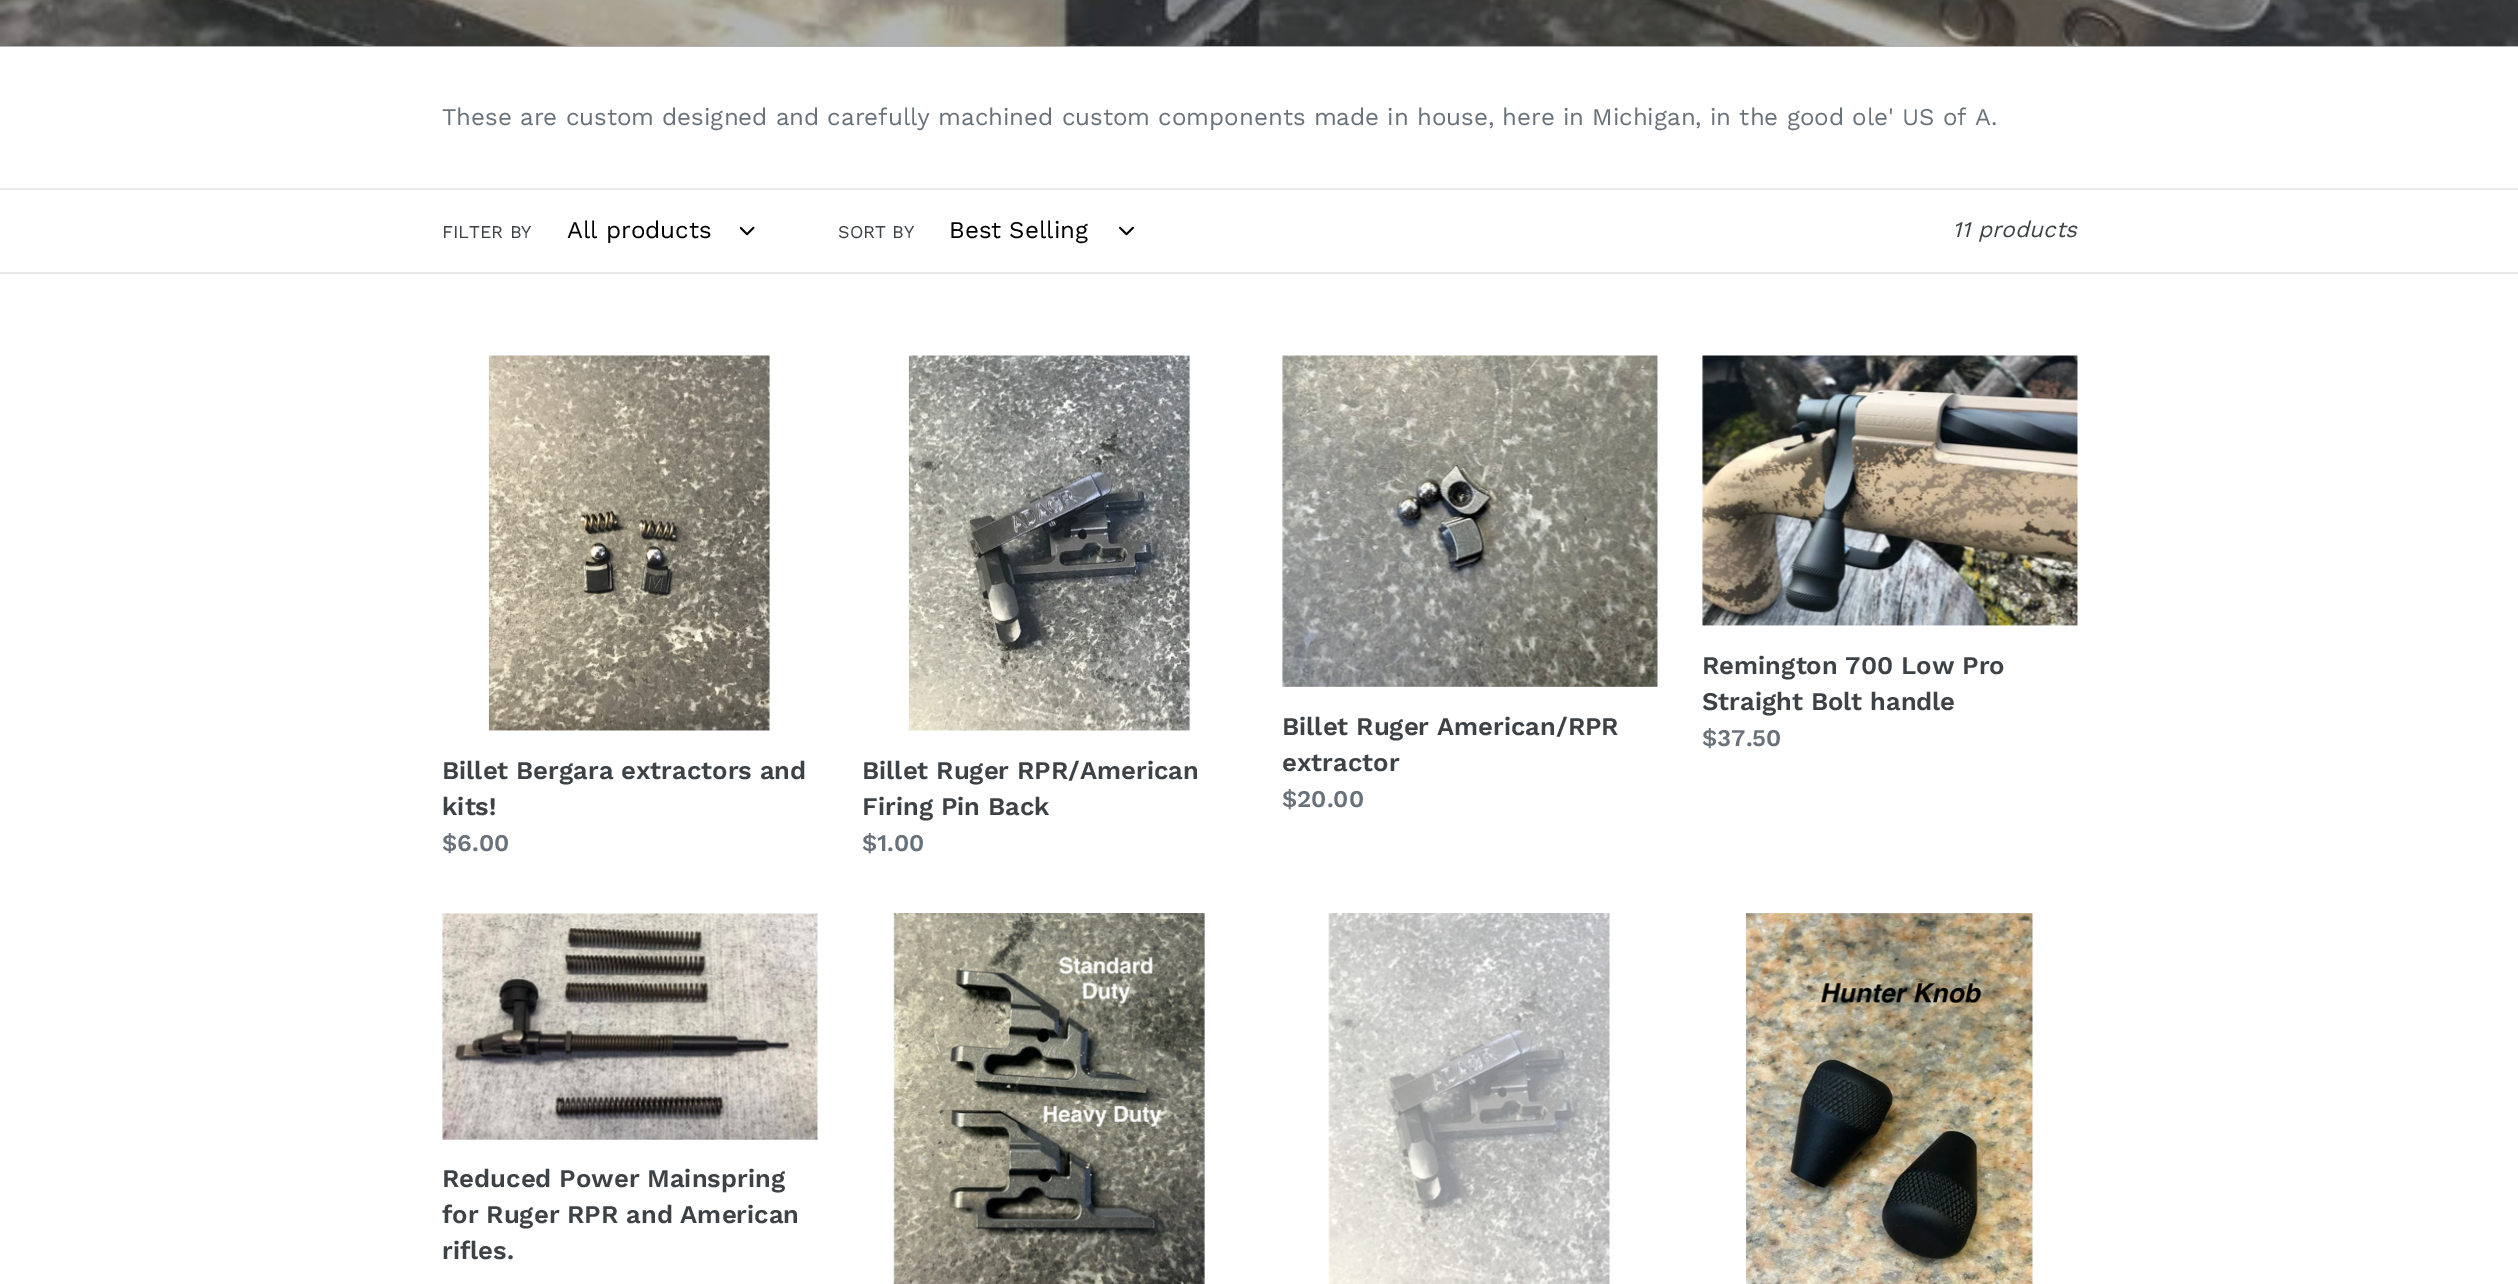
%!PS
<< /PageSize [2518 1284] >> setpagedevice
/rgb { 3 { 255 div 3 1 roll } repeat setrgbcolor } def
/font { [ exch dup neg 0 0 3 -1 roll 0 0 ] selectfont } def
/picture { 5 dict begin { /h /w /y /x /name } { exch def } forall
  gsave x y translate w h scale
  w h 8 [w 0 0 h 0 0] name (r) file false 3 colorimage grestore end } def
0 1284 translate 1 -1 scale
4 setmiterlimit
255 255 255 rgb
0 0 2518 1284 rectfill
177 179 181 rgb
0 46 2518 1 rectfill
(img/1.rgb) 0 0 2518 46 picture
232 233 235 rgb
0 188 2518 2 rectfill
0 272 2518 2 rectfill
(img/2.rgb) 740 226 15 10 picture
(img/3.rgb) 1119 226 15 10 picture
(img/4.rgb) 1702 355 376 271 picture
(img/5.rgb) 488 355 282 376 picture
(img/6.rgb) 908 355 282 376 picture
(img/7.rgb) 1282 355 376 332 picture
(img/8.rgb) 442 913 376 227 picture
(img/9.rgb) 893 913 312 371 picture
(img/10.rgb) 1328 913 282 371 picture
(img/11.rgb) 1746 913 287 371 picture
/WorkSans-Regular 24 font
105 114 123 rgb
442 125 moveto (These are custom designed and carefully machined custom components made in house, here in Michigan, in the good ole' US of A.) show
/WorkSans-Regular 18 font
61 66 70 rgb
442 238 moveto (FILTER BY) show
/WorkSans-Regular 24 font
0 0 0 rgb
567 238 moveto (All products) show
/WorkSans-Regular 18 font
61 66 70 rgb
838 238 moveto (SORT BY) show
/WorkSans-Regular 24 font
0 0 0 rgb
949 238 moveto (Best Selling) show
/WorkSans-Italic 22.5 font
61 66 70 rgb
1952 237 moveto (11 products) show
/WorkSans-SemiBold 25.5 font
1702 674 moveto (Remington 700 Low Pro) show
1702 710 moveto (Straight Bolt handle) show
/WorkSans-SemiBold 24 font
105 114 123 rgb
1702 746 moveto ($37.50) show
/WorkSans-SemiBold 25.5 font
61 66 70 rgb
442 779 moveto (Billet Bergara extractors and) show
442 815 moveto (kits!) show
/WorkSans-SemiBold 24 font
105 114 123 rgb
442 851 moveto ($6.00) show
/WorkSans-SemiBold 25.5 font
61 66 70 rgb
862 779 moveto (Billet Ruger RPR/American) show
862 815 moveto (Firing Pin Back) show
/WorkSans-SemiBold 24 font
105 114 123 rgb
862 851 moveto ($1.00) show
/WorkSans-SemiBold 25.5 font
61 66 70 rgb
1282 735 moveto (Billet Ruger American/RPR) show
1282 771 moveto (extractor) show
/WorkSans-SemiBold 24 font
105 114 123 rgb
1282 807 moveto ($20.00) show
/WorkSans-SemiBold 25.5 font
61 66 70 rgb
[
  [(Reduced Power Mainspring) 442 1187]
  [(for Ruger RPR and American) 442 1223]
  [(rifles.) 442 1259]
] { aload pop moveto show } forall
showpage
